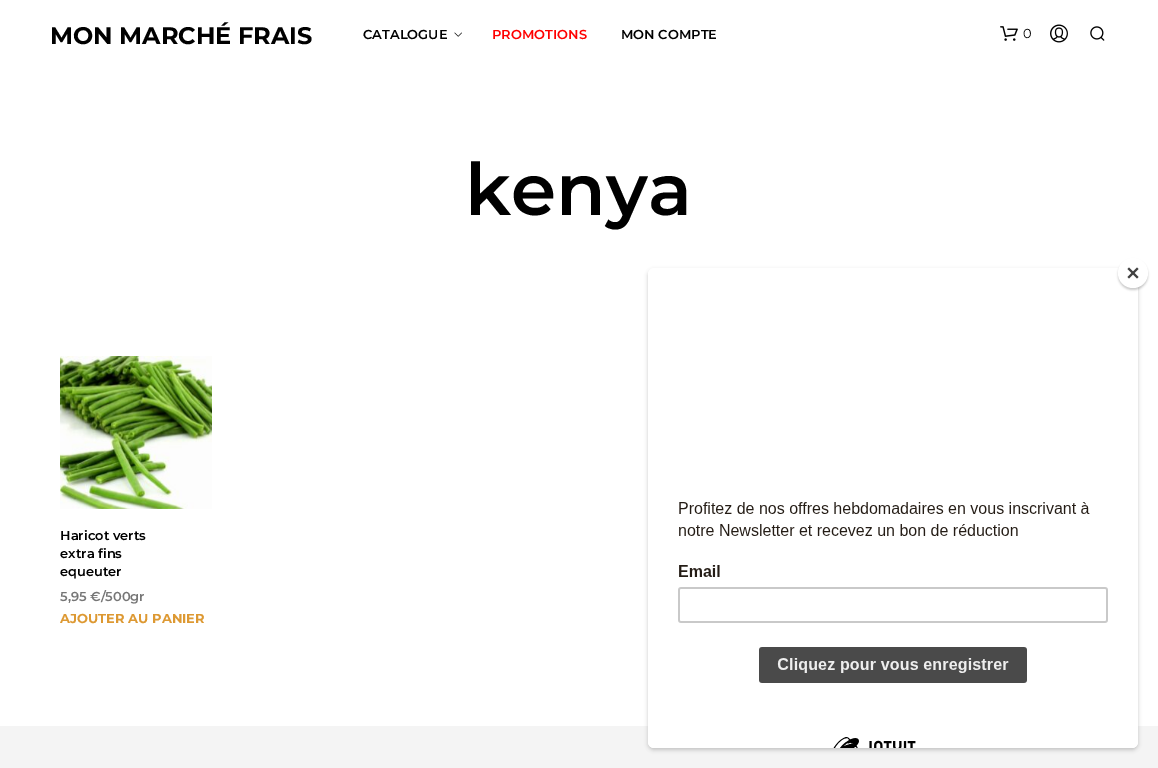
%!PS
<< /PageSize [1158 768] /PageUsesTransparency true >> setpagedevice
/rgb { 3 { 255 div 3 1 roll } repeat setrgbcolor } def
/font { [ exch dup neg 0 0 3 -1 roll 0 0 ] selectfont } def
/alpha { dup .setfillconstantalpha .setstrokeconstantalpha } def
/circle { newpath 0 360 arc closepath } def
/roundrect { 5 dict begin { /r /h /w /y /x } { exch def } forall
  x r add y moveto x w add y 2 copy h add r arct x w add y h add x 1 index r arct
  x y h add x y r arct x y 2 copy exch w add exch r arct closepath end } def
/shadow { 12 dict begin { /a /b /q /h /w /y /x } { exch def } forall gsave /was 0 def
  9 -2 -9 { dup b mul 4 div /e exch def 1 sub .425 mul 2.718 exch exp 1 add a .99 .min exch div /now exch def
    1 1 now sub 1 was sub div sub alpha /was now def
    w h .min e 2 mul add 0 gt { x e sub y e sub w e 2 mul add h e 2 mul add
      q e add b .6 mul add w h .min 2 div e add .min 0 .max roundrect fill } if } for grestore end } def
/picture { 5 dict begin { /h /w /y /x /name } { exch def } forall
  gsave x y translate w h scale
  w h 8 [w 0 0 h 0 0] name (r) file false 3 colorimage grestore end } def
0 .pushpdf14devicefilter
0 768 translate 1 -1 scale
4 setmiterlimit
255 255 255 rgb
0 0 1158 768 rectfill
(img/1.rgb) 454 32 8 5 picture
(img/2.rgb) 1000 26 18 15 picture
(img/3.rgb) 1050 24 18 19 picture
(img/4.rgb) 1090 26 15 15 picture
(img/5.rgb) 60 356 152 153 picture
244 244 244 rgb
0 726 1158 42 rectfill
0 0 0 rgb
648 270 490 480 6 2 0.2 shadow
255 255 255 rgb
648 268 490 480 6 roundrect fill
0 0 0 rgb
1118 260 30 30 15 1 0.2 shadow
255 255 255 rgb
1133 273 15 circle fill
65 65 65 rgb
1137 267.5 moveto 1138.5 269 lineto 1129 278.5 lineto 1127.5 277 lineto closepath fill
1127.5 269 moveto 1129 267.5 lineto 1138.5 277 lineto 1137 278.5 lineto closepath fill
(img/6.rgb) 648 502 490 246 picture
/Montserrat-Bold 24 font
0 0 0 rgb
50 44 moveto (MON MARCHÉ FRAIS) show
/Montserrat-SemiBold 13 font
363 39 moveto (CATALOGUE) show
255 0 0 rgb
492 39 moveto (PROMOTIONS) show
0 0 0 rgb
621 39 moveto (MON COMPTE) show
/Montserrat-Regular 13 font
1023 38 moveto (0) show
/Montserrat-SemiBold 72.5 font
465 215 moveto (kenya) show
/Montserrat-SemiBold 13 font
[
  [(Haricot verts) 60 540]
  [(extra fins) 60 558]
  [(equeuter) 60 576]
] { aload pop moveto show } forall
118 118 118 rgb
60 601 moveto (5,95 €/500gr) show
/Montserrat-Bold 13 font
221 153 51 rgb
60 623 moveto (AJOUTER AU PANIER) show
.poppdf14devicefilter showpage
